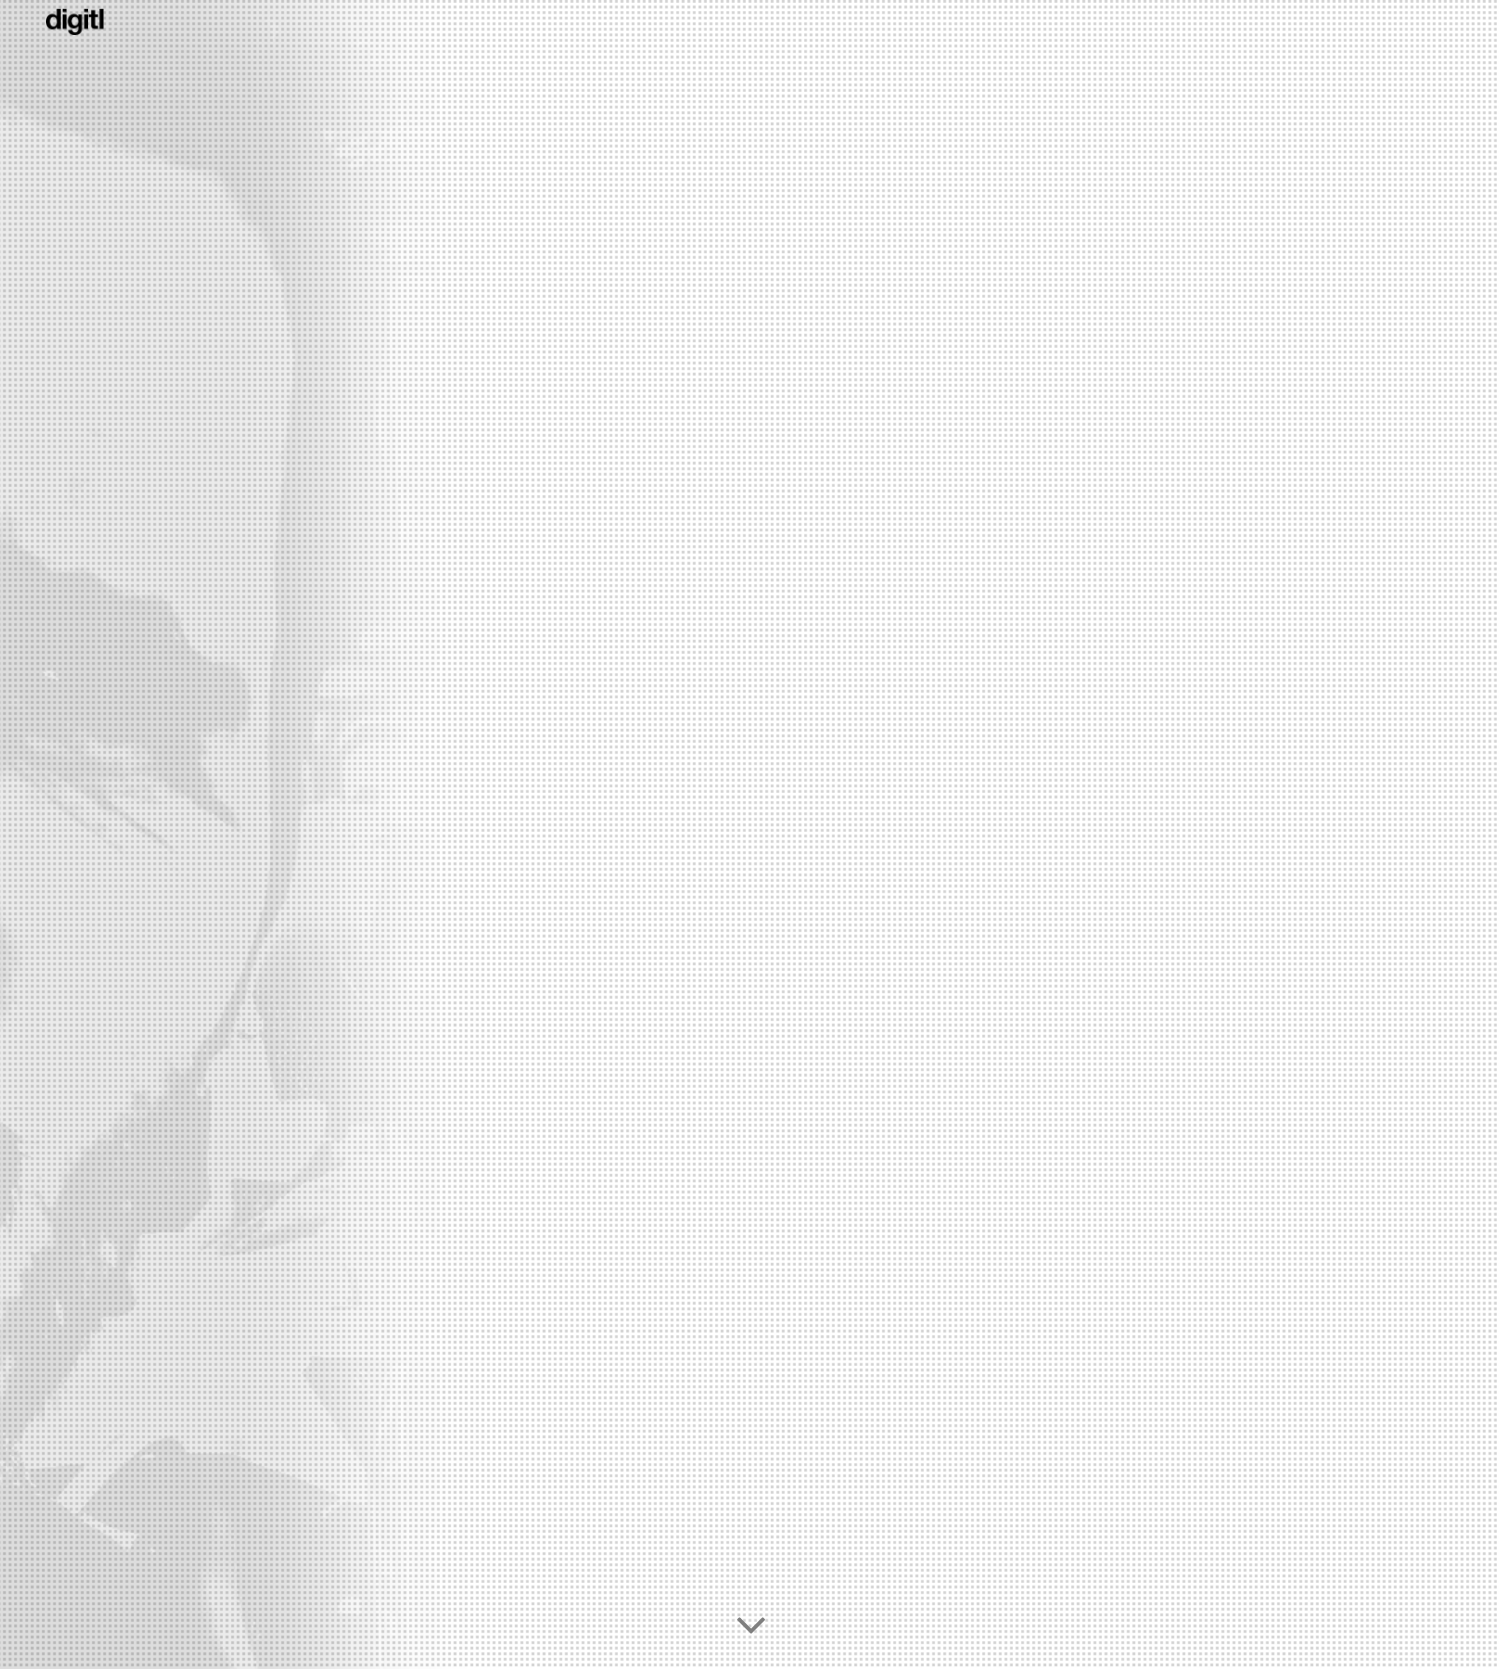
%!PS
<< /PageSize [1497 1669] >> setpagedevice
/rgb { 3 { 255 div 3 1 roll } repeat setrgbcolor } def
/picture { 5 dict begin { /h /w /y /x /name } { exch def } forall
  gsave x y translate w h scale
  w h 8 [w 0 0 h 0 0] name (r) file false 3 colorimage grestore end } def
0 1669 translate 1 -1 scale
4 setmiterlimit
255 255 255 rgb
0 0 1497 1669 rectfill
(img/1.rgb) 0 0 1497 1669 picture
(img/2.rgb) 46 8 58 27 picture
(img/3.rgb) 737 1617 28 17 picture
showpage
